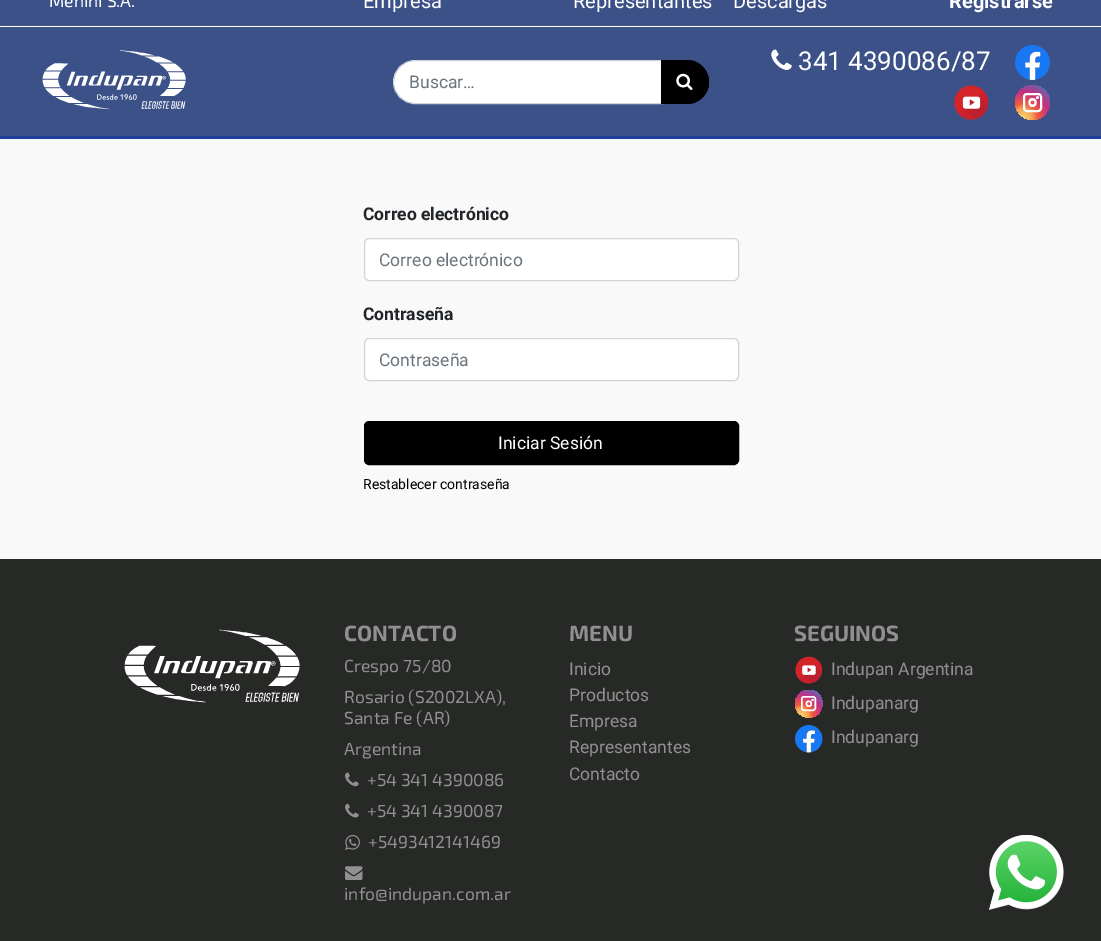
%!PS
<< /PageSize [1101 941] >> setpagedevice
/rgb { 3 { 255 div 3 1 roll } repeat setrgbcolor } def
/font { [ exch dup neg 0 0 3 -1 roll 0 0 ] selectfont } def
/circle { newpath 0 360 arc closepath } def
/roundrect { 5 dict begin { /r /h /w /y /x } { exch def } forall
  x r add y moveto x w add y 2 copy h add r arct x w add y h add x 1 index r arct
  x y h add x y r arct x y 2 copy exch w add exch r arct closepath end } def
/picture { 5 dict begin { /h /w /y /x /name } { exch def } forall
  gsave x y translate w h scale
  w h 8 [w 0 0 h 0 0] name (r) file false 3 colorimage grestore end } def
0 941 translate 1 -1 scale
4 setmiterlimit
250 249 249 rgb
0 0 1101 941 rectfill
[
  [0 0 1101 26 60 81 136]
  [0 27 1101 109 60 81 136]
  [0 26 1101 1 255 255 255]
] { aload pop rgb rectfill } forall
(img/1.rgb) 42 50 144 60 picture
(img/2.rgb) 771 49 21 21 picture
(img/3.rgb) 1015 45 35 35 picture
(img/4.rgb) 954 85 35 35 picture
gsave 1032.5 85 moveto 1023 85 1015 93 1015 102.5 curveto 1015 112 1023 120 1032.5 120 curveto 1042 120 1050 112 1050 102.5 curveto 1050 93 1042 85 1032.5 85 curveto closepath clip newpath 1023 118 translate 38 38 scale
<< /ShadingType 3 /ColorSpace /DeviceRGB /Coords [0 0 0 0 0 1] /Extend [true true] /Function << /FunctionType 3 /Domain [0 1] /Functions [<< /FunctionType 2 /Domain [0 1] /C0 [1 0.839 0.463] /C1 [0.949 0.643 0.329] /N 1 >> << /FunctionType 2 /Domain [0 1] /C0 [0.949 0.643 0.329] /C1 [0.941 0.361 0.235] /N 1 >> << /FunctionType 2 /Domain [0 1] /C0 [0.941 0.361 0.235] /C1 [0.761 0.184 0.525] /N 1 >> << /FunctionType 2 /Domain [0 1] /C0 [0.761 0.184 0.525] /C1 [0.4 0.4 0.678] /N 1 >> << /FunctionType 2 /Domain [0 1] /C0 [0.4 0.4 0.678] /C1 [0.361 0.424 0.698] /N 1 >> << /FunctionType 2 /Domain [0 1] /C0 [0.361 0.424 0.698] /C1 [0.361 0.424 0.698] /N 1 >>] /Bounds [0.25 0.38 0.7 0.96 0.99] /Encode [0 1 0 1 0 1 0 1 0 1 0 1] >> >> shfill grestore
1037.4 97.6 1.4 circle fill
1032.5 98 moveto 1027 98 1027 107 1032.5 107 curveto 1038 107 1038 98 1032.5 98 curveto closepath 1032.5 104.5 moveto 1029.5 104.5 1029.5 100.5 1032.5 100.5 curveto 1035.5 100.5 1035.5 104.5 1032.5 104.5 curveto closepath fill
2 setlinewidth
1024 94 17 17 3 roundrect stroke
415 61 moveto 661 61 lineto 661 103 lineto 415 103 lineto 403.5 103 394 93.5 394 82 curveto 394 70.5 403.5 61 415 61 curveto closepath fill
206 212 218 rgb
1 setlinewidth
415 60.5 moveto 662.5 60.5 lineto 662.5 103.5 lineto 415 103.5 lineto 403 103.5 393.5 94 393.5 82 curveto 393.5 70 403 60.5 415 60.5 curveto closepath stroke
0 0 0 rgb
661 60 moveto 687 60 lineto 699 60 709 70 709 82 curveto 709 94 699 104 687 104 curveto 661 104 lineto closepath fill
661 60 moveto 687 60 lineto 699 60 709 70 709 82 curveto 709 94 699 104 687 104 curveto 661 104 lineto closepath 661 61 moveto 687 61 lineto 698 61 708 70 708 82 curveto 708 93 698 102 687 102 curveto 661 102 lineto closepath eofill
(img/5.rgb) 676 73 17 17 picture
29 62 154 rgb
0 136 1101 3 rectfill
255 255 255 rgb
364.5 238.5 374 42 4.5 roundrect gsave fill grestore
206 212 218 rgb
stroke
255 255 255 rgb
364.5 338.5 374 42 4.5 roundrect gsave fill grestore
206 212 218 rgb
stroke
0 0 0 rgb
364.5 421.5 374 43 4.5 roundrect gsave fill grestore
stroke
39 41 38 rgb
0 559 1101 382 rectfill
(img/6.rgb) 124 629 176 74 picture
(img/7.rgb) 345 772 14 15 picture
(img/8.rgb) 345 803 14 15 picture
(img/9.rgb) 345 835 15 15 picture
(img/10.rgb) 345 866 18 14 picture
(img/11.rgb) 795 656 28 28 picture
gsave 809 690 moveto 790.5 690 790.5 717.5 809 717.5 curveto 827 717.5 827 690 809 690 curveto closepath clip newpath 801 716 translate 30 30 scale
<< /ShadingType 3 /ColorSpace /DeviceRGB /Coords [0 0 0 0 0 1] /Extend [true true] /Function << /FunctionType 3 /Domain [0 1] /Functions [<< /FunctionType 2 /Domain [0 1] /C0 [1 0.839 0.463] /C1 [0.949 0.643 0.329] /N 1 >> << /FunctionType 2 /Domain [0 1] /C0 [0.949 0.643 0.329] /C1 [0.941 0.361 0.235] /N 1 >> << /FunctionType 2 /Domain [0 1] /C0 [0.941 0.361 0.235] /C1 [0.761 0.184 0.525] /N 1 >> << /FunctionType 2 /Domain [0 1] /C0 [0.761 0.184 0.525] /C1 [0.4 0.4 0.678] /N 1 >> << /FunctionType 2 /Domain [0 1] /C0 [0.4 0.4 0.678] /C1 [0.361 0.424 0.698] /N 1 >> << /FunctionType 2 /Domain [0 1] /C0 [0.361 0.424 0.698] /C1 [0.361 0.424 0.698] /N 1 >>] /Bounds [0.25 0.38 0.7 0.96 0.99] /Encode [0 1 0 1 0 1 0 1 0 1 0 1] >> >> shfill grestore
255 255 255 rgb
812.6 699.9 1.1 circle fill
809 700.5 moveto 804.5 700.5 804.5 707 809 707 curveto 813 707 813 700.5 809 700.5 curveto closepath 809 705.5 moveto 806.5 705.5 806.5 702 809 702 curveto 811 702 811 705.5 809 705.5 curveto closepath fill
1.5 setlinewidth
801.75 696.75 13.5 13.5 2.25 roundrect stroke
(img/12.rgb) 795 725 28 28 picture
(img/13.rgb) 989 835 75 75 picture
/Exo2-Regular 17.5 font
49 7 moveto (Menini S.A.) show
/Roboto-Regular 20 font
[
  [(Empresa) 363 8]
  [(Representantes) 573 8]
  [(Descargas) 733 8]
] { aload pop moveto show } forall
/Roboto-Bold 20 font
949 8 moveto (Registrarse) show
/Roboto-Regular 26 font
798 70 moveto (341 4390086/87) show
/Roboto-Regular 17.5 font
108 117 125 rgb
409 88 moveto (Buscar…) show
/Roboto-Bold 17.5 font
33 37 41 rgb
363 220 moveto (Correo electrónico) show
/Roboto-Regular 17.5 font
108 117 125 rgb
379 266 moveto (Correo electrónico) show
/Roboto-Bold 17.5 font
33 37 41 rgb
363 320 moveto (Contraseña) show
/Roboto-Regular 17.5 font
108 117 125 rgb
379 366 moveto (Contraseña) show
255 255 255 rgb
498 449 moveto (Iniciar Sesión) show
/Roboto-Regular 14 font
0 0 0 rgb
363 489 moveto (Restablecer contraseña) show
/Exo2-Bold 22 font
143 144 143 rgb
344 641 moveto (CONTACTO) show
/Exo2-Regular 17.5 font
[
  [(Crespo 75/80) 344 672]
  [(Rosario \(S2002LXA\),) 344 703]
  [(Santa Fe \(AR\)) 344 724]
  [(Argentina) 344 755]
  [(+54 341 4390086) 367 786]
  [(+54 341 4390087) 367 817]
  [(+5493412141469) 368 848]
  [(info@indupan.com.ar) 344 900]
] { aload pop moveto show } forall
/Exo2-Bold 22 font
569 641 moveto (MENU) show
/Roboto-Regular 17.5 font
[
  [(Inicio) 569 675]
  [(Productos) 569 701]
  [(Empresa) 569 727]
  [(Representantes) 569 753]
  [(Contacto) 569 780]
] { aload pop moveto show } forall
/Exo2-Bold 22 font
794 641 moveto (SEGUINOS) show
/Roboto-Regular 17.5 font
[
  [(Indupan Argentina) 831 675]
  [(Indupanarg) 831 709]
  [(Indupanarg) 831 743]
] { aload pop moveto show } forall
showpage
